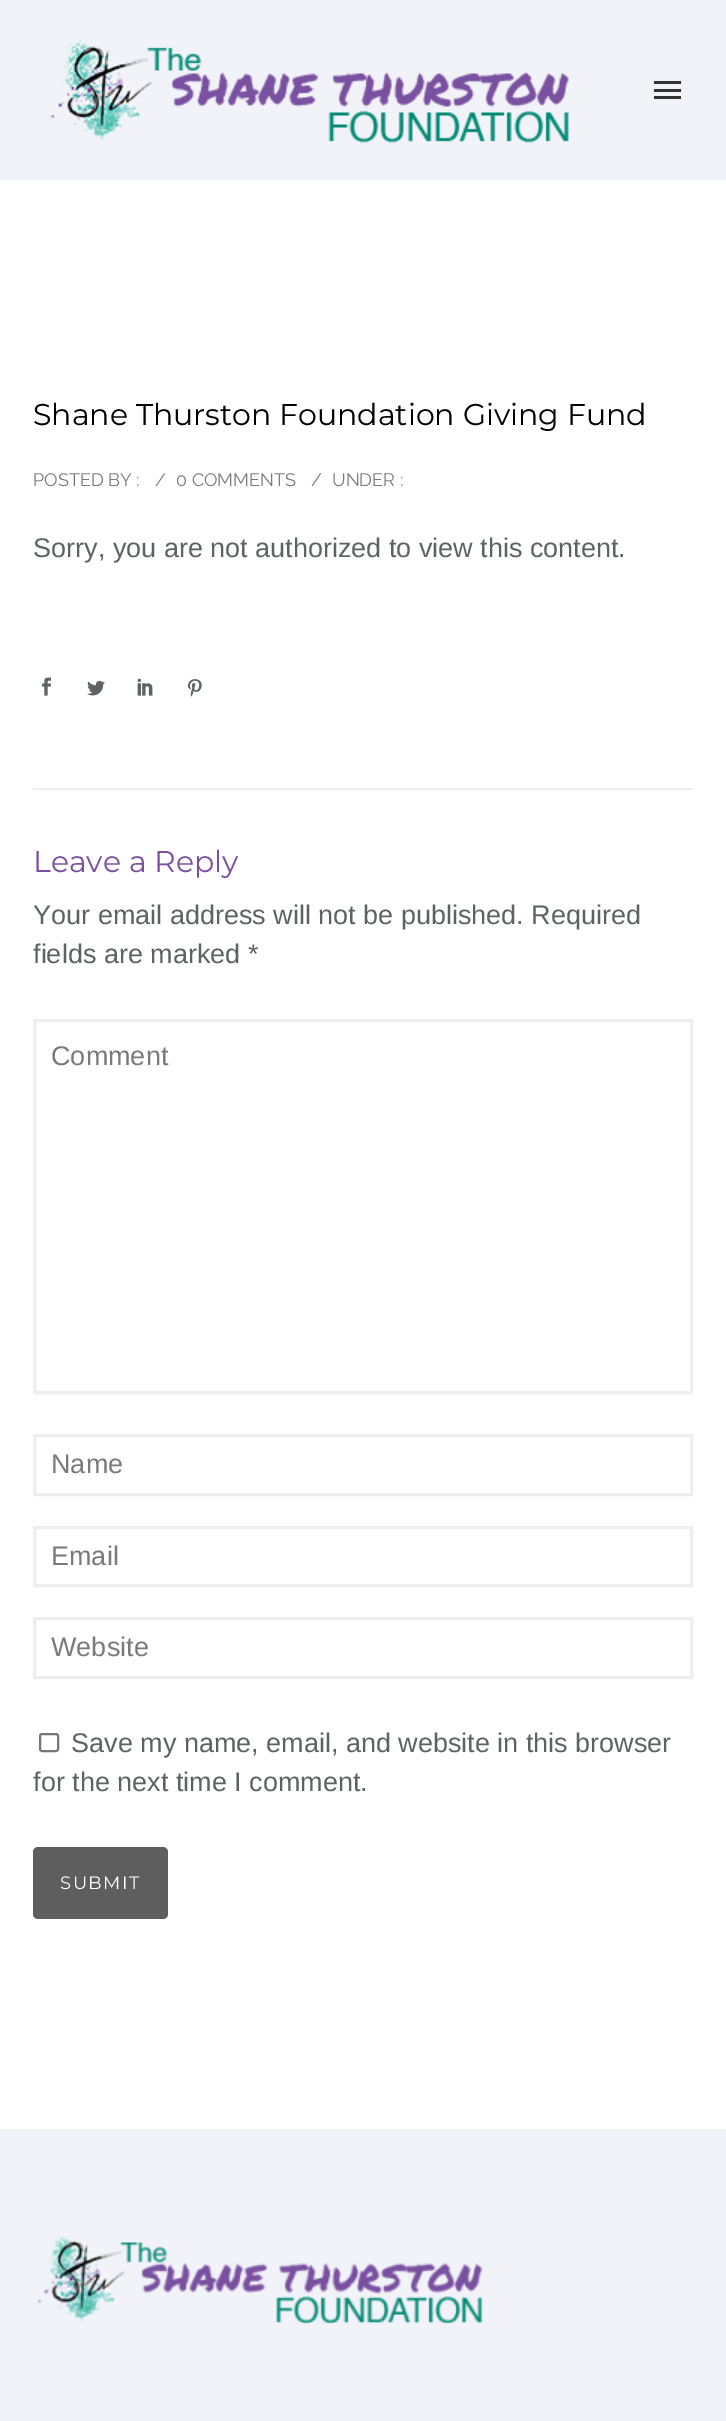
%!PS
<< /PageSize [726 2421] >> setpagedevice
/rgb { 3 { 255 div 3 1 roll } repeat setrgbcolor } def
/font { [ exch dup neg 0 0 3 -1 roll 0 0 ] selectfont } def
/roundrect { 5 dict begin { /r /h /w /y /x } { exch def } forall
  x r add y moveto x w add y 2 copy h add r arct x w add y h add x 1 index r arct
  x y h add x y r arct x y 2 copy exch w add exch r arct closepath end } def
/picture { 5 dict begin { /h /w /y /x /name } { exch def } forall
  gsave x y translate w h scale
  w h 8 [w 0 0 h 0 0] name (r) file false 3 colorimage grestore end } def
0 2421 translate 1 -1 scale
4 setmiterlimit
255 255 255 rgb
0 0 726 2421 rectfill
242 243 248 rgb
0 0 726 180 rectfill
(img/1.rgb) 50 39 519 104 picture
[
  [654 81 27 3 50 50 50]
  [654 89 27 3 50 50 50]
  [654 96 27 3 50 50 50]
  [33 788 660 2 238 238 238]
] { aload pop rgb rectfill } forall
(img/2.rgb) 42 677 10 19 picture
(img/3.rgb) 87 680 18 16 picture
(img/4.rgb) 137 678 16 18 picture
(img/5.rgb) 188 679 14 18 picture
3 setlinewidth
34.5 1020.5 657 372 rectstroke
34.5 1435.5 657 59 rectstroke
34.5 1527.5 657 58 rectstroke
34.5 1618.5 657 59 rectstroke
118 118 118 rgb
2 setlinewidth
40 1734 18 17 2 roundrect stroke
94 94 94 rgb
33 1847 135 72 5 roundrect fill
242 243 248 rgb
0 2129 726 292 rectfill
(img/6.rgb) 37 2235 446 89 picture
/Montserrat-Regular 30 font
0 0 0 rgb
33 425 moveto (Shane Thurston Foundation Giving Fund) show
/Raleway-Regular 18 font
122 122 122 rgb
[
  [(POSTED BY :) 33 486]
  [(/) 155 486]
  [(0 COMMENTS) 176 486]
  [(/) 311 486]
  [(UNDER :) 332 486]
] { aload pop moveto show } forall
/LiberationSans-Regular 27 font
95 98 99 rgb
33 557 moveto (Sorry, you are not authorized to view this content.) show
/Montserrat-Regular 30 font
122 80 160 rgb
33 872 moveto (Leave a Reply) show
/LiberationSans-Regular 27 font
95 98 99 rgb
33 924 moveto (Your email address will not be published. Required) show
33 963 moveto (fields are marked *) show
122 122 122 rgb
[
  [(Comment) 51 1065]
  [(Name) 51 1473]
  [(Email) 51 1565]
  [(Website) 51 1656]
] { aload pop moveto show } forall
95 98 99 rgb
71 1752 moveto (Save my name, email, and website in this browser) show
33 1791 moveto (for the next time I comment.) show
/Montserrat-Regular 18 font
255 255 255 rgb
60 1889 moveto 1.5 0 (SUBMIT) ashow
showpage
